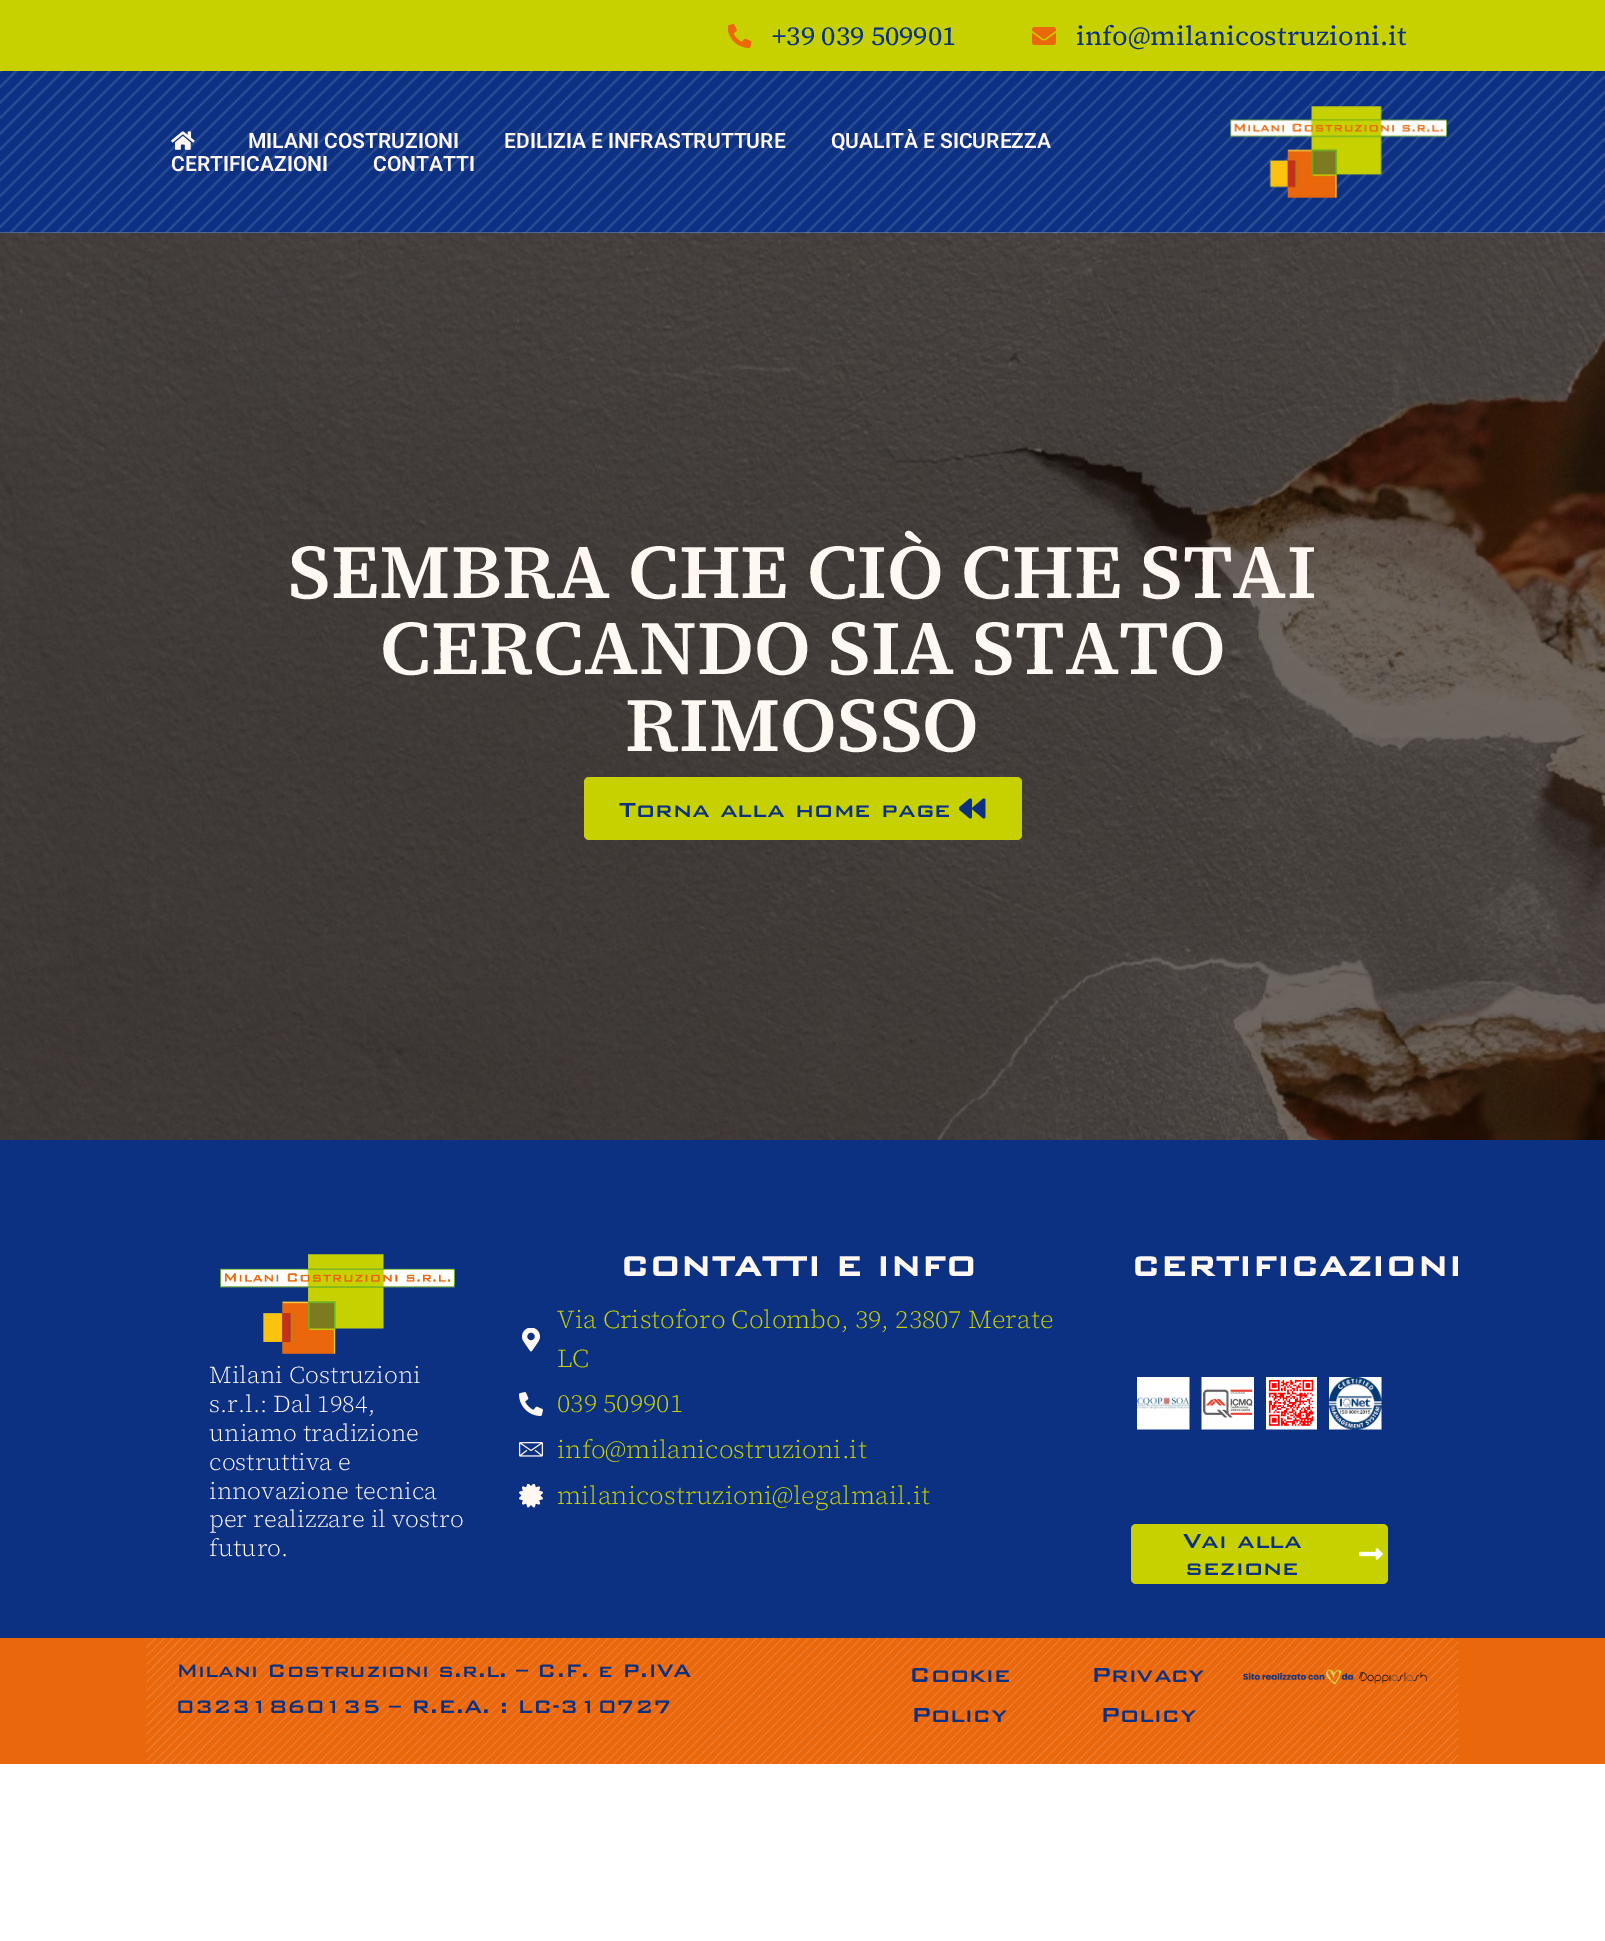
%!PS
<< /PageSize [1605 1941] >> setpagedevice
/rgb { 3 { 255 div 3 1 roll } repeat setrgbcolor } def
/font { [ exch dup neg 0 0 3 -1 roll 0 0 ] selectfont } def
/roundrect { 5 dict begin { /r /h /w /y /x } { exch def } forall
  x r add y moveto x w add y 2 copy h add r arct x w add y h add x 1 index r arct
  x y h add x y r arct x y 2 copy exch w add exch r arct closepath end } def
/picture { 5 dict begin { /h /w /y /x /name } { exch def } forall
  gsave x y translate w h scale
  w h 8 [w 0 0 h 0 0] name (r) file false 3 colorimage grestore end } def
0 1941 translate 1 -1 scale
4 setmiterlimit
255 255 255 rgb
0 0 1605 1941 rectfill
199 209 0 rgb
0 0 1605 71 rectfill
(img/1.rgb) 728 24 24 24 picture
(img/2.rgb) 1032 27 24 18 picture
12 49 131 rgb
0 71 1605 162 rectfill
(img/3.rgb) 0 70 1605 163 picture
(img/4.rgb) 171 131 24 19 picture
(img/5.rgb) 1230 106 217 92 picture
(img/6.rgb) 0 232 1605 908 picture
199 209 0 rgb
584 777 438 63 5 roundrect fill
(img/7.rgb) 959 798 27 21 picture
12 49 131 rgb
0 1140 1605 498 rectfill
(img/8.rgb) 220 1254 235 100 picture
(img/9.rgb) 522 1328 18 24 picture
(img/10.rgb) 519 1392 24 24 picture
(img/11.rgb) 519 1442 24 15 picture
(img/12.rgb) 519 1484 24 24 picture
(img/13.rgb) 1137 1377 53 53 picture
(img/14.rgb) 1201 1377 53 53 picture
(img/15.rgb) 1266 1377 51 53 picture
(img/16.rgb) 1329 1377 53 53 picture
199 209 0 rgb
1131 1524 257 60 5 roundrect fill
(img/17.rgb) 1359 1548 24 12 picture
234 103 12 rgb
0 1638 1605 126 rectfill
(img/18.rgb) 146 1638 1313 126 picture
(img/19.rgb) 1242 1669 186 16 picture
/SourceSerif4-Regular 27 font
12 49 131 rgb
772 45 moveto (+39 039 509901) show
1076 45 moveto (info@milanicostruzioni.it) show
/Roboto-SemiBold 21 font
255 247 241 rgb
[
  [(MILANI COSTRUZIONI) 248 148]
  [(EDILIZIA E INFRASTRUTTURE) 504 148]
  [(QUALITÀ E SICUREZZA) 831 148]
  [(CERTIFICAZIONI) 171 171]
  [(CONTATTI) 373 171]
] { aload pop moveto show } forall
/SourceSerif4-SemiBold 76.5 font
[
  [(SEMBRA CHE CIÒ CHE STAI) 288 598]
  [(CERCANDO SIA STATO) 380 674]
  [(RIMOSSO) 625 751]
] { aload pop moveto show } forall
/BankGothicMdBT-Medium 27 font
12 49 131 rgb
619 817 moveto (Torna alla home page) show
/SourceSerif4-Light 24 font
255 247 241 rgb
[
  [(Milani Costruzioni) 209 1383]
  [(s.r.l.: Dal 1984,) 209 1412]
  [(uniamo tradizione) 209 1441]
  [(costruttiva e) 209 1470]
  [(innovazione tecnica) 209 1499]
  [(per realizzare il vostro) 209 1527]
  [(futuro.) 209 1556]
] { aload pop moveto show } forall
/BankGothicMdBT-Bold 36 font
620 1276 moveto (CONTATTI E INFO) show
/SourceSerif4-Light 25.5 font
199 209 0 rgb
[
  [(Via Cristoforo Colombo, 39, 23807 Merate) 557 1328]
  [(LC) 557 1367]
  [(039 509901) 557 1412]
  [(info@milanicostruzioni.it) 557 1458]
  [(milanicostruzioni@legalmail.it) 557 1504]
] { aload pop moveto show } forall
/BankGothicMdBT-Bold 36 font
255 247 241 rgb
1131 1276 moveto (CERTIFICAZIONI) show
/BankGothicMdBT-Medium 27 font
12 49 131 rgb
1183 1548 moveto (Vai alla) show
1185 1575 moveto (sezione) show
/BankGothicMdBT-Medium 24 font
176 1677 moveto (Milani Costruzioni s.r.l. – C.F. e P.IVA) show
176 1713 moveto (03231860135 – R.E.A. : LC-310727) show
/BankGothicMdBT-Medium 27 font
[
  [(Cookie) 909 1682]
  [(Policy) 911 1722]
  [(Privacy) 1091 1682]
  [(Policy) 1100 1722]
] { aload pop moveto show } forall
showpage
